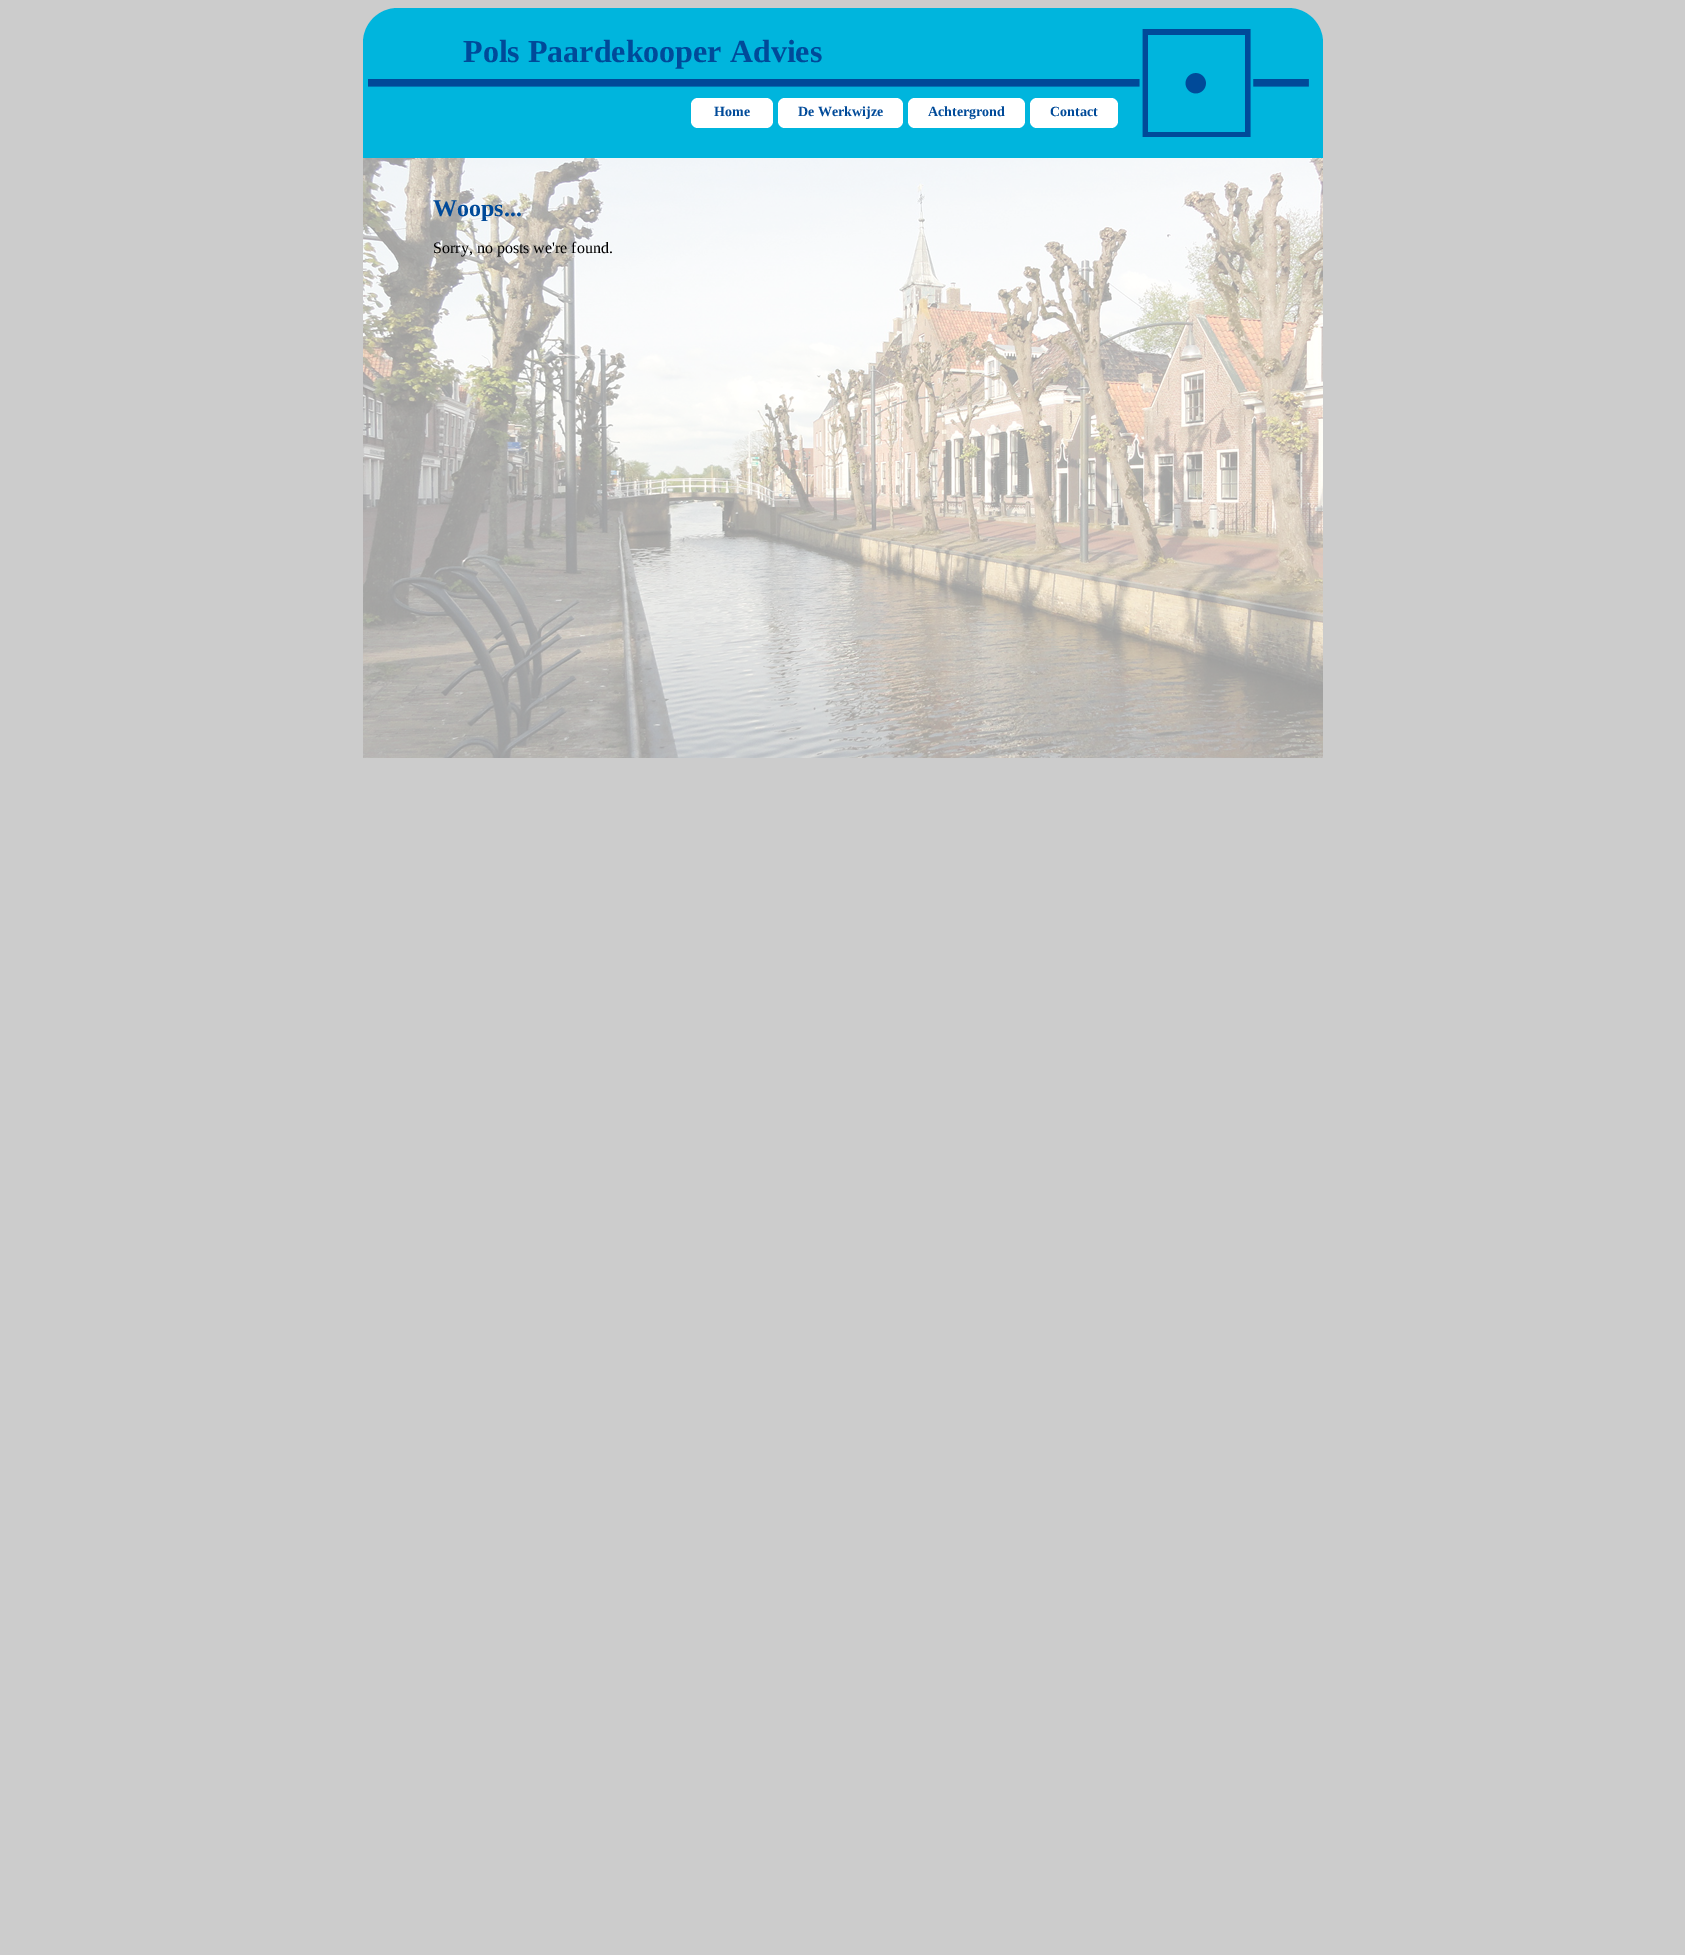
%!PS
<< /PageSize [1685 1955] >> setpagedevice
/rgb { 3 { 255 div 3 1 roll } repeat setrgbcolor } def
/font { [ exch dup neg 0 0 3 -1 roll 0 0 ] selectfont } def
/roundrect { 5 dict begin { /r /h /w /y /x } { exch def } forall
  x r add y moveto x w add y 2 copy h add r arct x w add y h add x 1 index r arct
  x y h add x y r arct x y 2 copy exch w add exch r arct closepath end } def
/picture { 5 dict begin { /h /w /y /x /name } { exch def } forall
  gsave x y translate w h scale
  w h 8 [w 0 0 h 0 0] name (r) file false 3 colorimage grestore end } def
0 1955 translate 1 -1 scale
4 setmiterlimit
204 204 204 rgb
0 0 1685 1955 rectfill
0 181 221 rgb
398 8 moveto 1288 8 lineto 1307.5 8 1323 23.5 1323 43 curveto 1323 158 lineto 363 158 lineto 363 43 lineto 363 23.5 378.5 8 398 8 curveto closepath fill
(img/1.rgb) 368 29 941 108 picture
255 255 255 rgb
691 98 82 30 7 roundrect fill
778 98 125 30 7 roundrect fill
908 98 117 30 7 roundrect fill
1030 98 88 30 7 roundrect fill
(img/2.rgb) 363 158 960 600 picture
/LiberationSerif-Bold 32 font
0 74 153 rgb
463 62 moveto (Pols Paardekooper Advies) show
/LiberationSerif-Bold 14 font
[
  [(Home) 714 116]
  [(De Werkwijze) 798 116]
  [(Achtergrond) 928 116]
  [(Contact) 1050 116]
] { aload pop moveto show } forall
/LiberationSerif-Bold 24 font
433 216 moveto (Woops...) show
/LiberationSerif-Regular 16 font
0 0 0 rgb
433 253 moveto (Sorry, no posts we're found.) show
showpage
